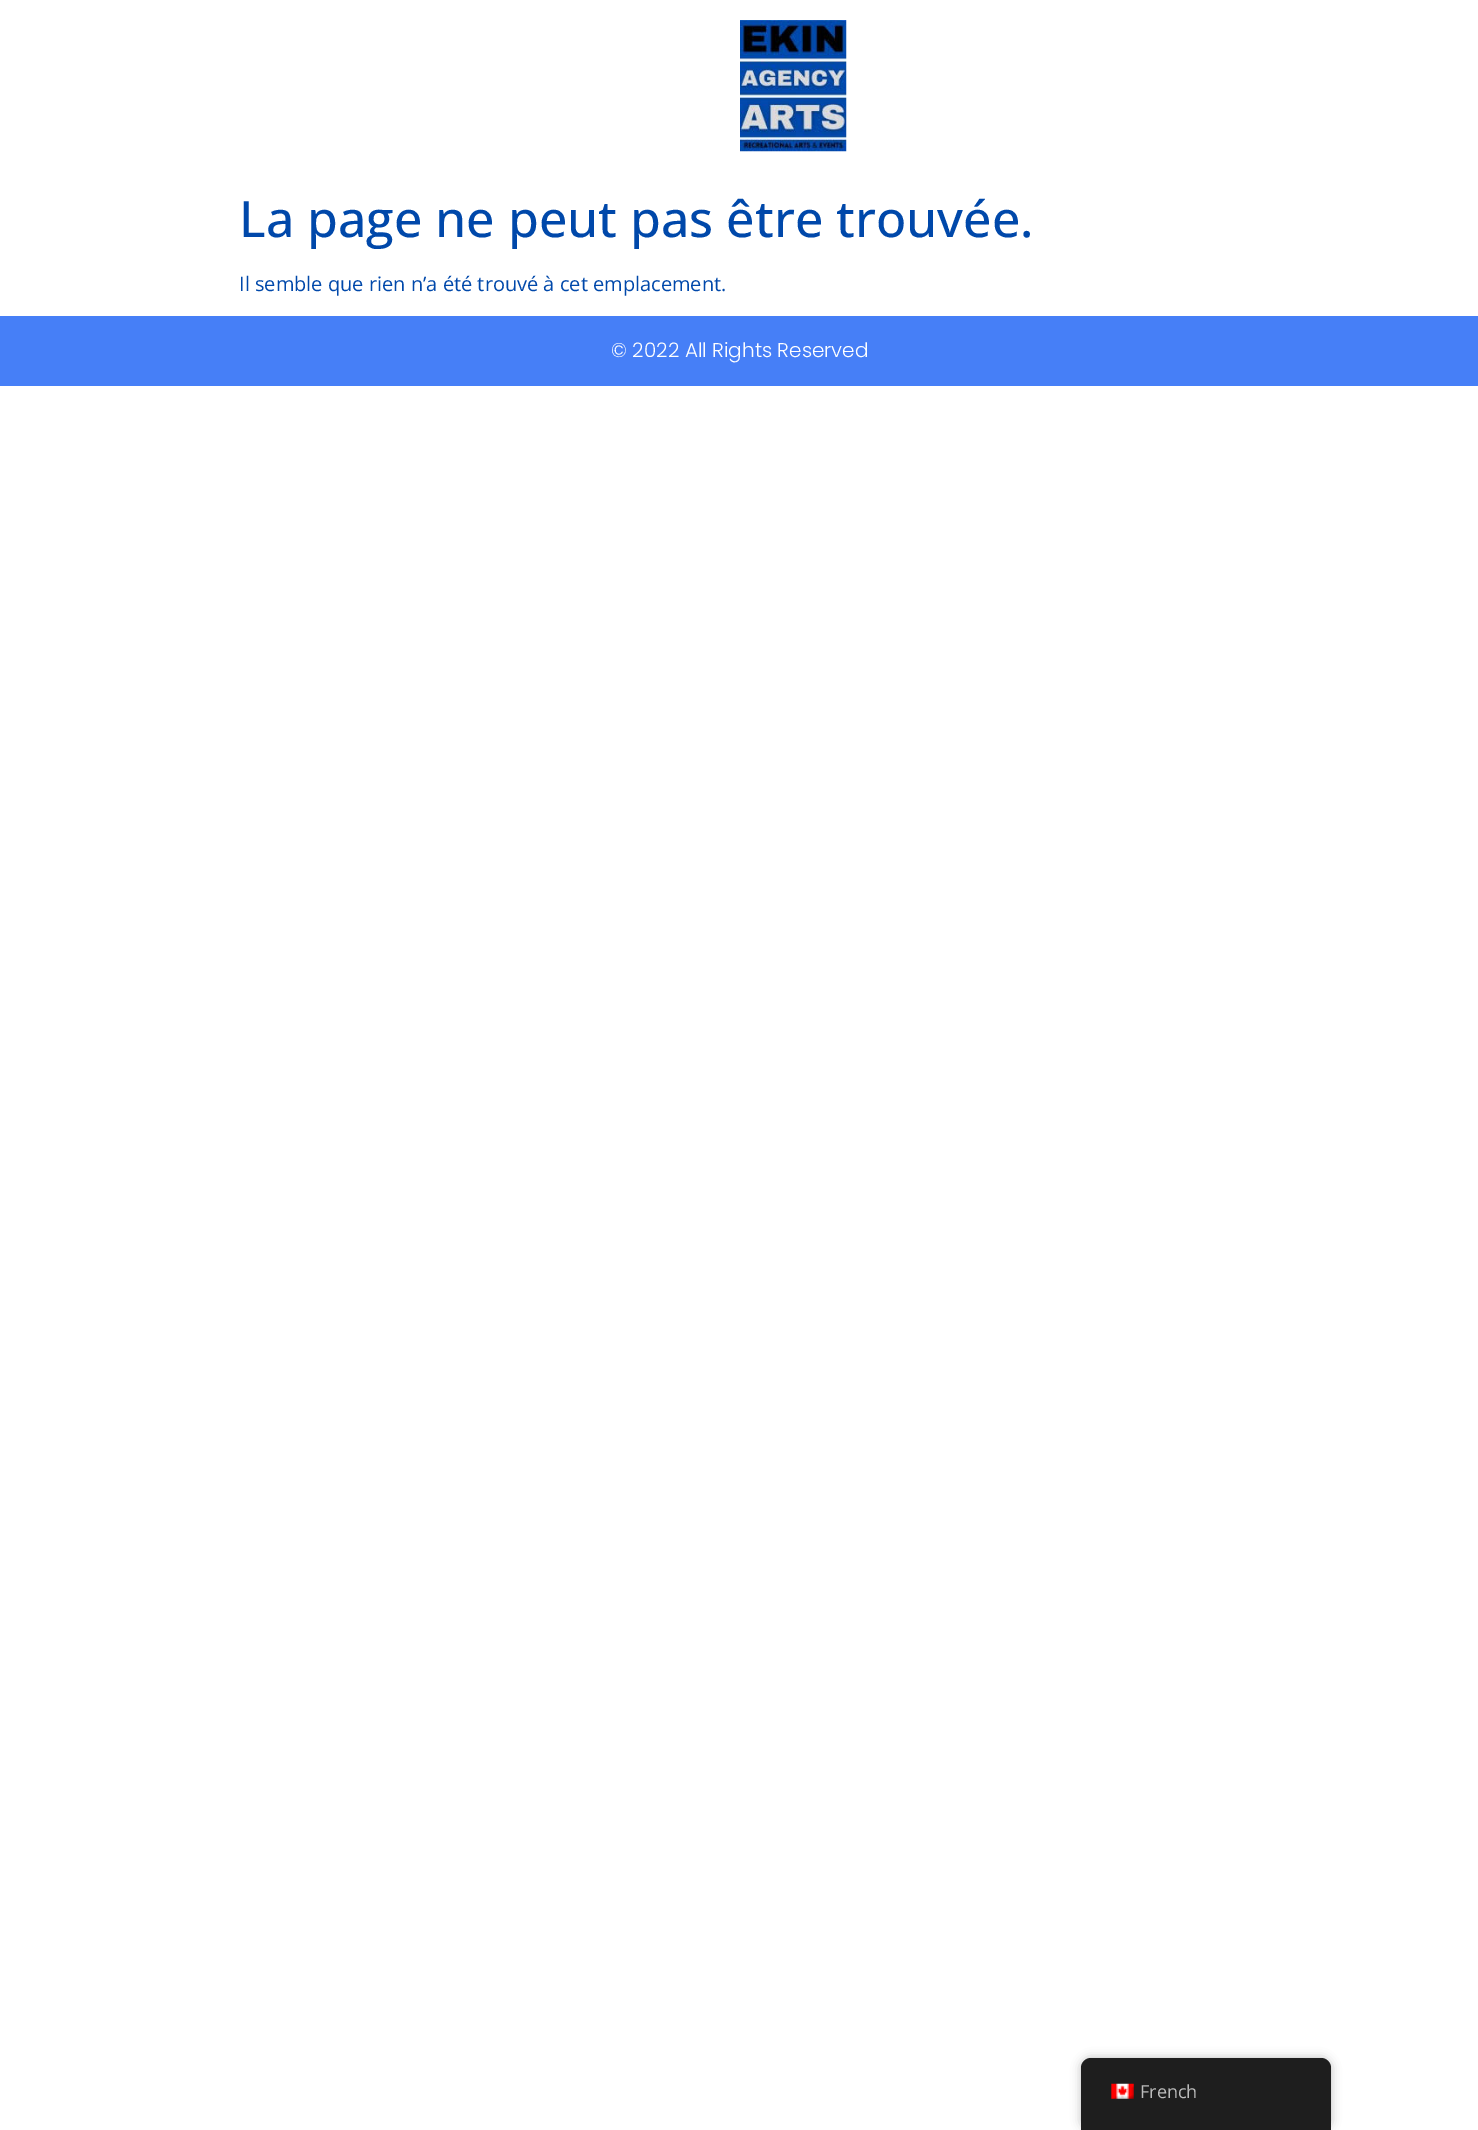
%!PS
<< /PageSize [1478 2130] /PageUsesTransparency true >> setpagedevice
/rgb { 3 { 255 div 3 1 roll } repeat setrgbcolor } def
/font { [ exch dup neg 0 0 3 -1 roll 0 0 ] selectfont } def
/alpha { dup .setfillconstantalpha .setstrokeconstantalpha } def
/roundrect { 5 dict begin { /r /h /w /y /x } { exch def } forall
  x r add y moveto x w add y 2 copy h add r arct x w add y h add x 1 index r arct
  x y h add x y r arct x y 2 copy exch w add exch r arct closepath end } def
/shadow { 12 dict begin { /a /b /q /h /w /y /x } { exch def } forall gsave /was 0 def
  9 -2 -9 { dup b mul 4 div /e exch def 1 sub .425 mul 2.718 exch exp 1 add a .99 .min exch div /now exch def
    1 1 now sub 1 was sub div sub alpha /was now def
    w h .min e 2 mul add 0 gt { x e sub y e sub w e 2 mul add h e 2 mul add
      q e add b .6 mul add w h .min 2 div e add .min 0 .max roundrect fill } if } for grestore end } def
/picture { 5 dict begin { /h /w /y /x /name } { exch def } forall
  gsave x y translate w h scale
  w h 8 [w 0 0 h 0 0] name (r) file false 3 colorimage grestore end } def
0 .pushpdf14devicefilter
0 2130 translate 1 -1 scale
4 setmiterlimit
255 255 255 rgb
0 0 1478 2130 rectfill
(img/1.rgb) 740 20 107 132 picture
70 127 247 rgb
0 316 1478 70 rectfill
0 0 0 rgb
1081 2058 250 72 10 5 0.25 shadow
30 30 30 rgb
1091 2058 moveto 1321 2058 lineto 1326.5 2058 1331 2062.5 1331 2068 curveto 1331 2130 lineto 1081 2130 lineto 1081 2068 lineto 1081 2062.5 1085.5 2058 1091 2058 curveto closepath fill
(img/2.rgb) 1111 2083 23 16 picture
/OpenSans-Medium 50 font
0 72 170 rgb
239 237 moveto (La page ne peut pas être trouvée.) show
/OpenSans-Regular 20 font
239 291 moveto (Il semble que rien n’a été trouvé à cet emplacement.) show
/Poppins-Light 20 font
255 255 255 rgb
611 357 moveto (© 2022 All Rights Reserved) show
/OpenSans-Regular 18 font
189 189 189 rgb
1140 2098 moveto (French) show
.poppdf14devicefilter showpage
